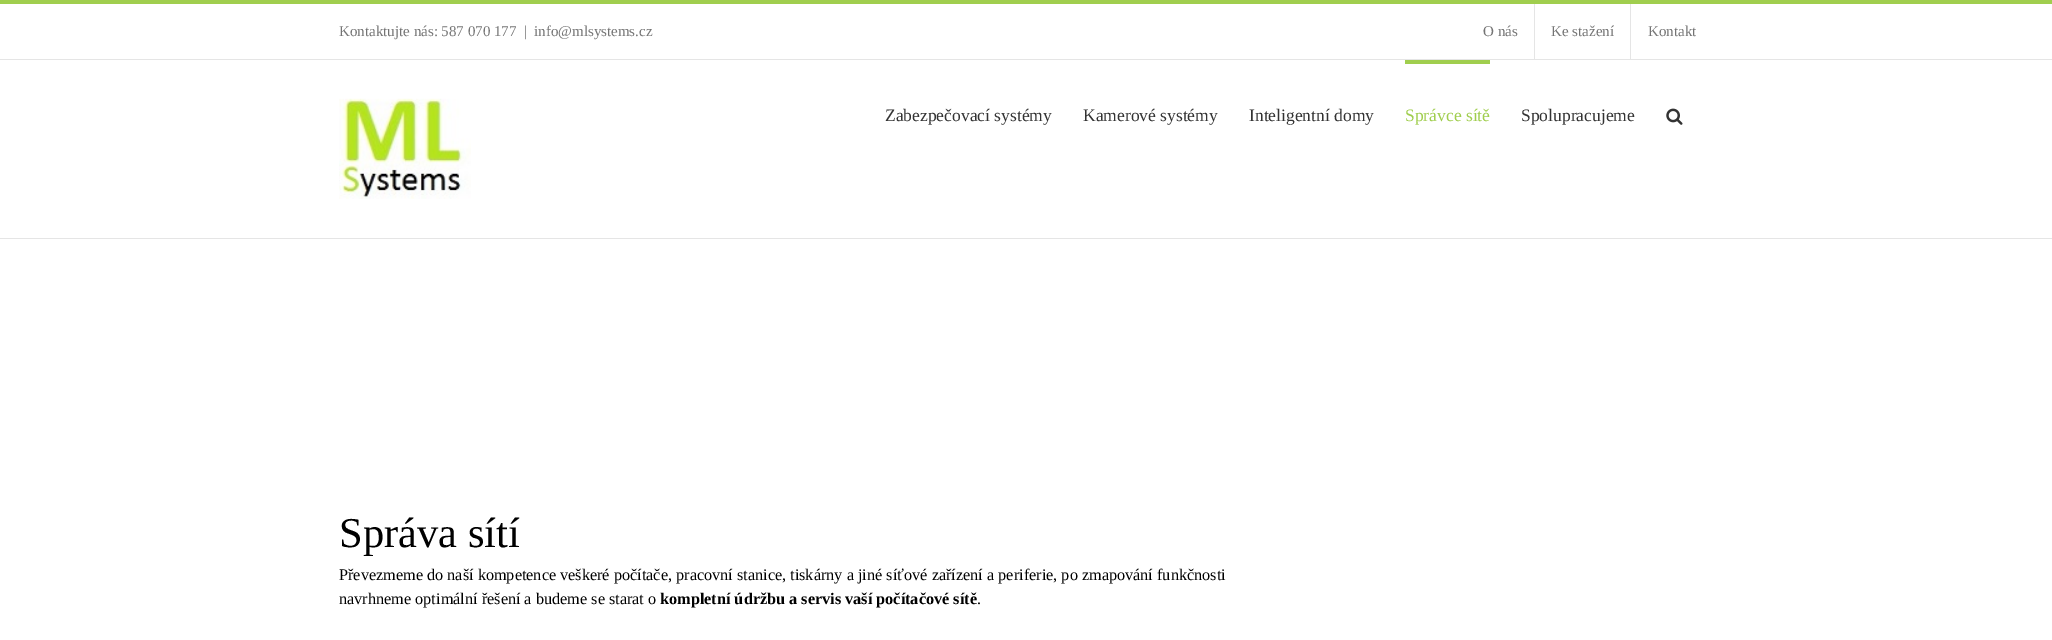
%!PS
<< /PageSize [2052 640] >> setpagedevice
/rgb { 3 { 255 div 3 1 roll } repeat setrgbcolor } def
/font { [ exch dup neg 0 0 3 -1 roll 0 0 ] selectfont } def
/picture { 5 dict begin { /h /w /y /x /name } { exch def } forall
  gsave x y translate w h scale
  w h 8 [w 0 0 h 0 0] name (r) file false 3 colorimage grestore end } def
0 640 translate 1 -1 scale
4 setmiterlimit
255 255 255 rgb
0 0 2052 640 rectfill
[
  [0 0 2052 4 160 206 78]
  [0 59 2052 1 229 229 229]
  [1534 4 1 55 229 229 229]
  [1630 4 1 55 229 229 229]
  [0 238 2052 1 229 229 229]
] { aload pop rgb rectfill } forall
(img/1.rgb) 339 98 132 101 picture
160 206 78 rgb
1405 60 85 4 rectfill
(img/2.rgb) 1666 108 17 17 picture
/LiberationSerif-Regular 15 font
116 116 116 rgb
[
  [(Kontaktujte nás: 587 070 177) 339 36]
  [(|) 524 36]
  [(info@mlsystems.cz) 534 36]
  [(O nás) 1483 36]
  [(Ke stažení) 1551 36]
  [(Kontakt) 1648 36]
] { aload pop moveto show } forall
/LiberationSerif-Regular 17.5 font
51 51 51 rgb
[
  [(Zabezpečovací systémy) 885 121]
  [(Kamerové systémy) 1083 121]
  [(Inteligentní domy) 1249 121]
] { aload pop moveto show } forall
160 206 78 rgb
1405 121 moveto (Správce sítě) show
51 51 51 rgb
1521 121 moveto (Spolupracujeme) show
/LiberationSerif-Regular 42.5 font
0 0 0 rgb
339 547 moveto (Správa sítí) show
/LiberationSerif-Regular 16.25 font
339 580 moveto (Převezmeme do naší kompetence veškeré počítače, pracovní stanice, tiskárny a jiné síťové zařízení a periferie, po zmapování funkčnosti) show
339 604 moveto (navrhneme optimální řešení a budeme se starat o) show
/LiberationSerif-Bold 16.25 font
660 604 moveto (kompletní údržbu a servis vaší počítačové sítě) show
/LiberationSerif-Regular 16.25 font
977 604 moveto (.) show
showpage
